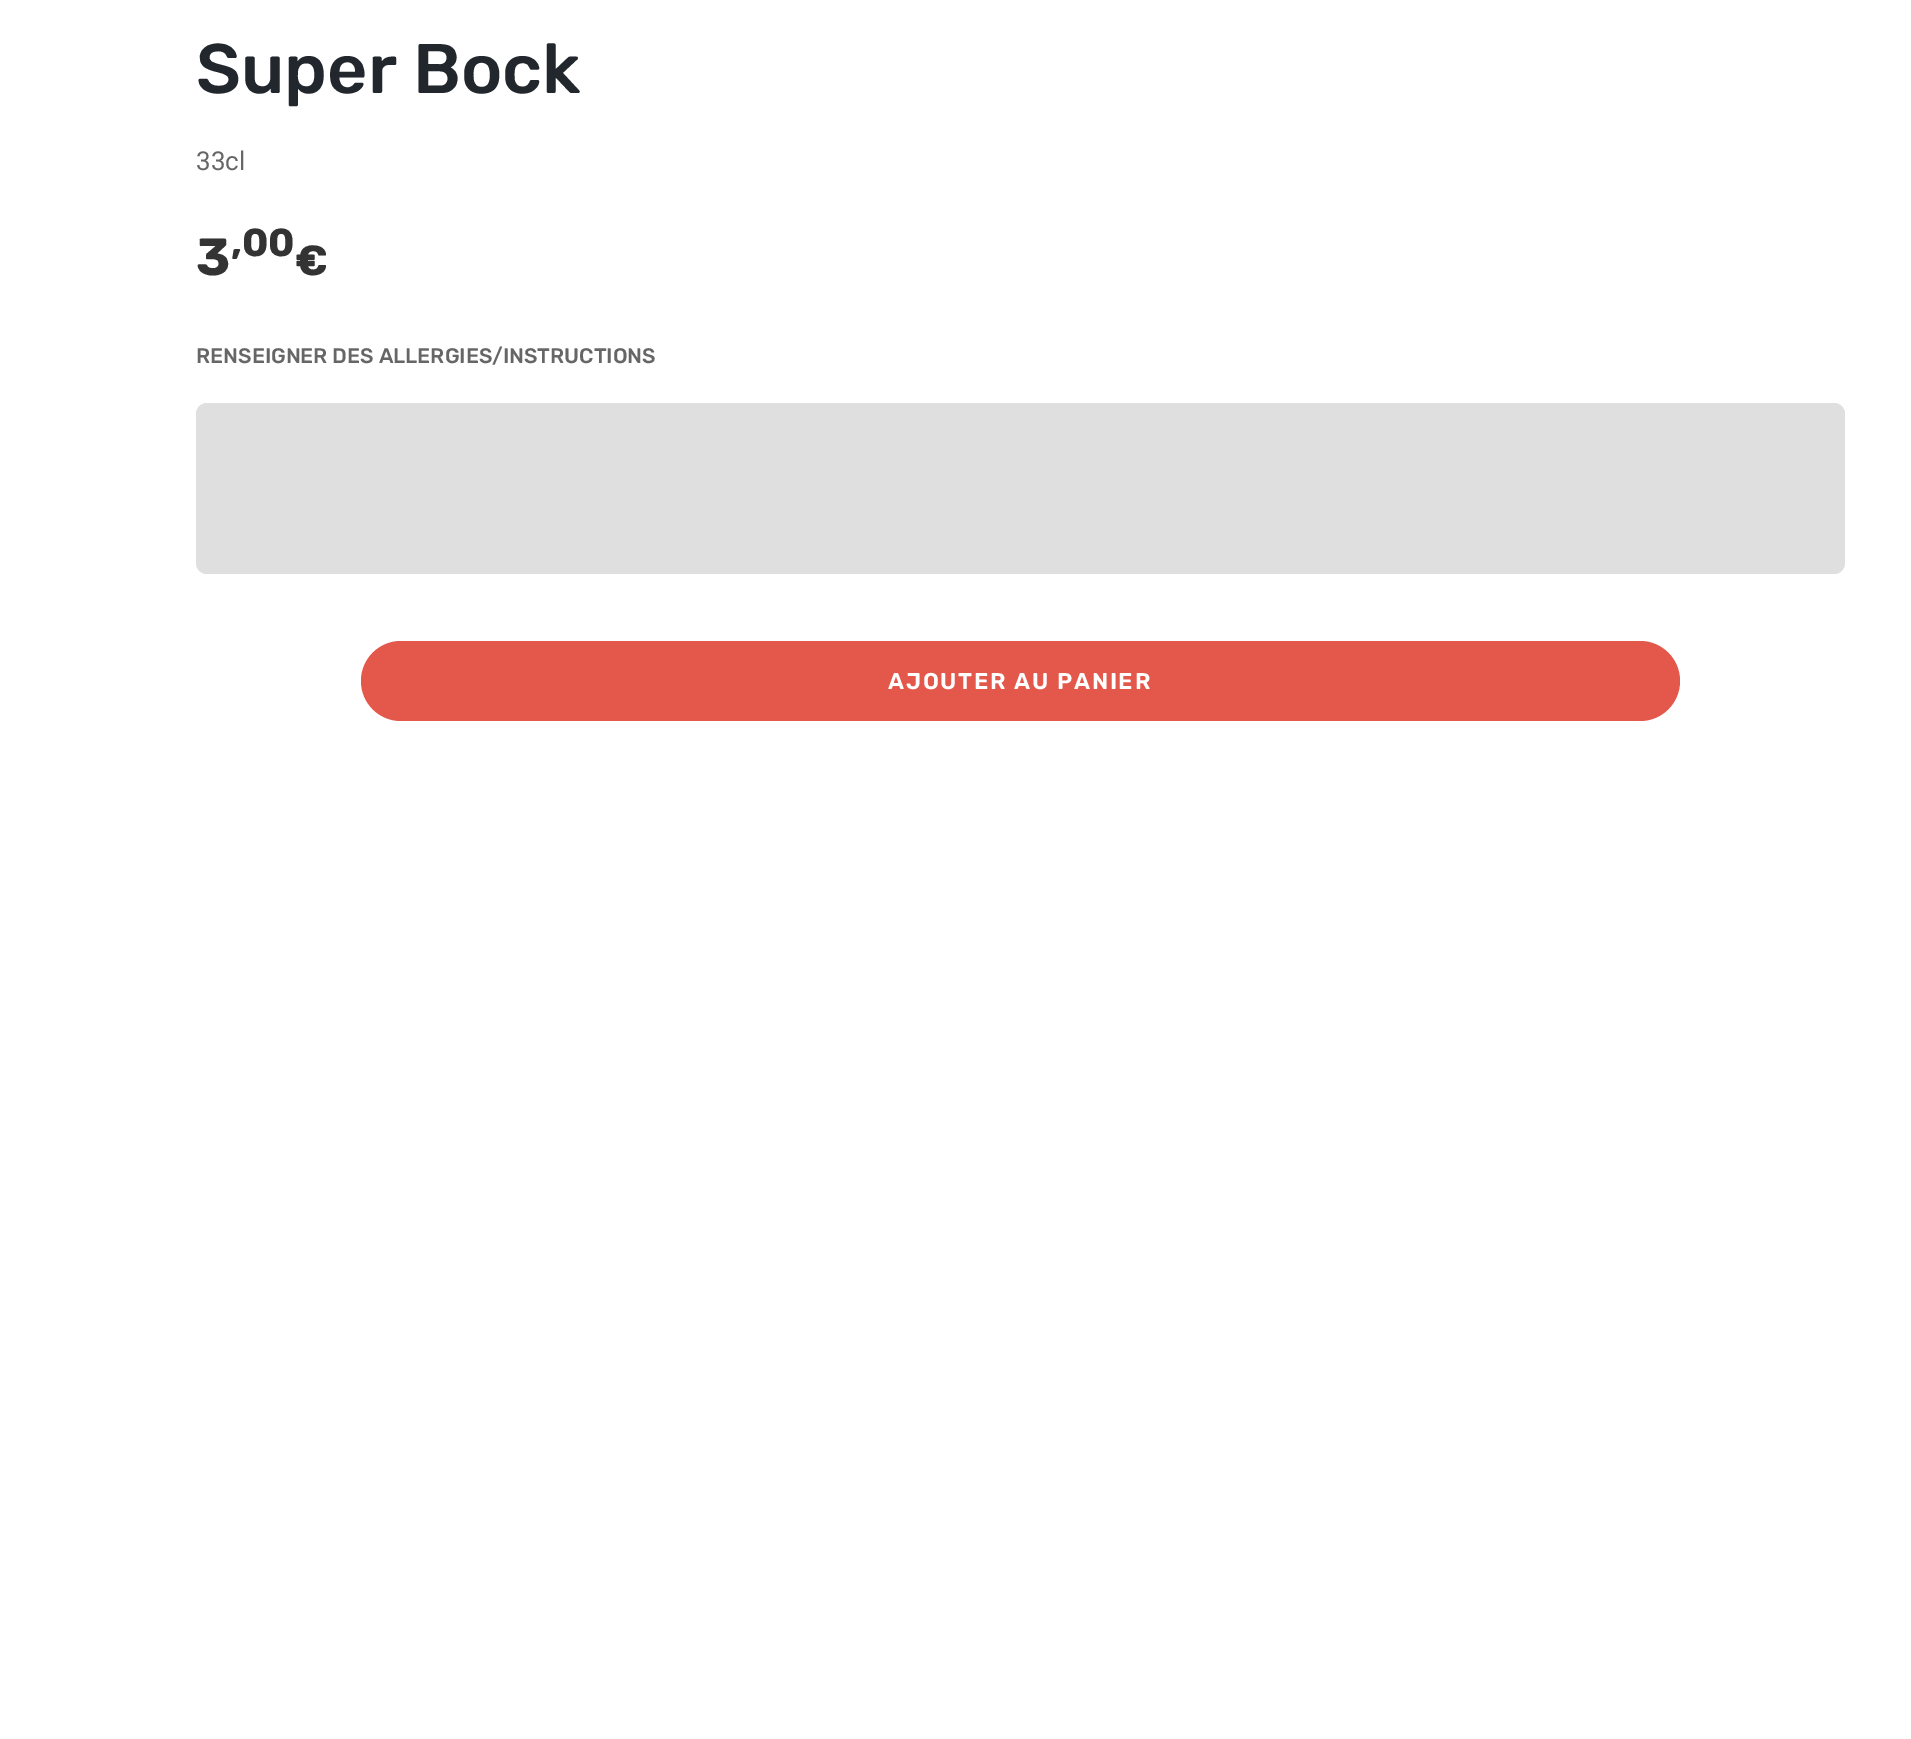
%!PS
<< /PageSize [1911 1739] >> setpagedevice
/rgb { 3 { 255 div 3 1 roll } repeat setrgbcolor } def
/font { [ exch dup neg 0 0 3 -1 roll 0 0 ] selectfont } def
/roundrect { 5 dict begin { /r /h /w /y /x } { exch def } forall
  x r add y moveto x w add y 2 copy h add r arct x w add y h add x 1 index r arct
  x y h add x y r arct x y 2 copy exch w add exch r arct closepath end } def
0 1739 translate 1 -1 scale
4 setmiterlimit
255 255 255 rgb
0 0 1911 1739 rectfill
224 223 223 rgb
196 403 1649 171 11 roundrect fill
228 88 75 rgb
361 641 1319 80 40 roundrect fill
/Rubik-Medium 70 font
34 39 45 rgb
196 93 moveto (Super Bock) show
/Roboto-Regular 26 font
102 102 102 rgb
196 170 moveto (33cl) show
/Rubik-Bold 52 font
51 51 51 rgb
196 275 moveto (3) show
/Rubik-Bold 39 font
231 256 moveto (,00) show
/Rubik-Bold 42 font
295 275 moveto (€) show
/Rubik-Medium 21 font
102 102 102 rgb
196 363 moveto (RENSEIGNER DES ALLERGIES/INSTRUCTIONS) show
/Rubik-SemiBold 22.75 font
255 255 255 rgb
888 689 moveto 1.75 0 (AJOUTER AU PANIER) ashow
showpage
